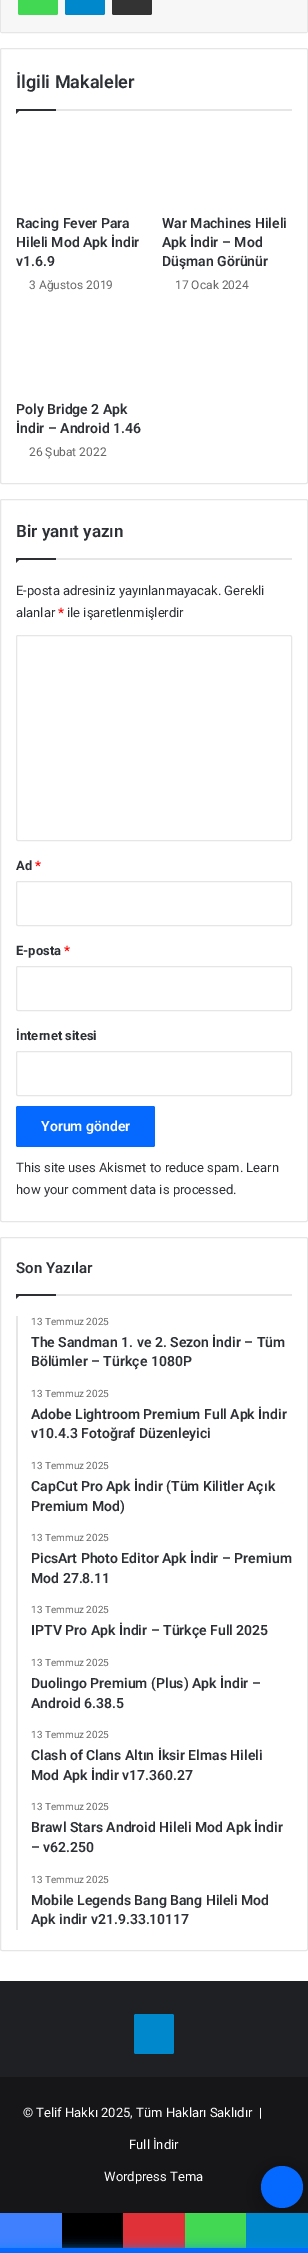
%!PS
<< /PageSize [308 2253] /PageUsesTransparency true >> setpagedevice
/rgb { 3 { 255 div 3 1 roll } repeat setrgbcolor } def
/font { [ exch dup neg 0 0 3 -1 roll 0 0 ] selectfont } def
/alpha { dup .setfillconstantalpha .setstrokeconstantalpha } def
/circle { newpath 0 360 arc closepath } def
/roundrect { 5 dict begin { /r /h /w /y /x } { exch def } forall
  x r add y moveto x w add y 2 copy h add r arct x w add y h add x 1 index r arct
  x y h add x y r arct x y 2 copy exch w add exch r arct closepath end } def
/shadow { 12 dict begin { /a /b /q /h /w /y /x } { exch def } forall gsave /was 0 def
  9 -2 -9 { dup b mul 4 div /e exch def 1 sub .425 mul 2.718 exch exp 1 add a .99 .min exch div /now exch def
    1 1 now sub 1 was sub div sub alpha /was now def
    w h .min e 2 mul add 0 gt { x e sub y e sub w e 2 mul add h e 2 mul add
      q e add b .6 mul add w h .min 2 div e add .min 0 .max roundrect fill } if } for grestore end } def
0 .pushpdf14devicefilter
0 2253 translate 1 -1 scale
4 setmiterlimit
255 255 255 rgb
0 0 308 2253 rectfill
230 230 230 rgb
0.5 -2.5 307 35 1.5 roundrect stroke
247 247 247 rgb
1 0 306 32 rectfill
67 216 84 rgb
18 -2 40 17 2 roundrect fill
0 136 204 rgb
65 -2 40 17 2 roundrect fill
51 51 51 rgb
112 -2 40 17 2 roundrect fill
230 230 230 rgb
0.5 48.5 307 435 1.5 roundrect stroke
56 109 236 2 rectfill
44 47 52 rgb
16 109 moveto 21 109 lineto 16 114 lineto closepath fill
16 109 40 2 rectfill
230 230 230 rgb
0.5 499.5 307 722 1.5 roundrect stroke
56 558 236 2 rectfill
44 47 52 rgb
16 558 moveto 21 558 lineto 16 563 lineto closepath fill
16 558 40 2 rectfill
230 230 230 rgb
16.5 635.5 275 205 1.5 roundrect stroke
16.5 881.5 275 44 1.5 roundrect stroke
16.5 966.5 275 44 1.5 roundrect stroke
16.5 1051.5 275 44 1.5 roundrect stroke
6 105 255 rgb
16 1106 139 41 2 roundrect fill
230 230 230 rgb
0.5 1237.5 307 713 1.5 roundrect stroke
56 1294 236 2 rectfill
44 47 52 rgb
16 1294 moveto 21 1294 lineto 16 1299 lineto closepath fill
[
  [16 1294 40 2 44 47 52]
  [16 1316 2 614 230 230 230]
  [0 1981 308 96 31 32 36]
] { aload pop rgb rectfill } forall
0 136 204 rgb
134 2014 40 40 2 roundrect fill
22 22 25 rgb
0 2077 308 136 rectfill
0 0 0 rgb
261 2171 42 42 21 12.5 0.3 shadow
6 105 255 rgb
282 2187 21 circle fill
[
  [0 2213 62 35 64 128 255]
  [62 2213 61 35 0 0 0]
  [123 2213 62 35 225 49 56]
  [185 2213 61 35 67 216 84]
  [246 2213 62 35 0 136 204]
] { aload pop rgb rectfill } forall
0 136 255 rgb
0 2248 308 5 0 5 0.7 shadow
6 105 255 rgb
0 2248 308 5 rectfill
/Roboto-SemiBold 18 font
44 47 52 rgb
16 88 moveto (İlgili Makaleler) show
/Roboto-SemiBold 14 font
[
  [(Racing Fever Para) 16 228]
  [(Hileli Mod Apk İndir) 16 247]
  [(v1.6.9) 16 266]
] { aload pop moveto show } forall
/Roboto-Regular 12 font
102 102 102 rgb
29 289 moveto (3 Ağustos 2019) show
/Roboto-SemiBold 14 font
44 47 52 rgb
[
  [(War Machines Hileli) 162 228]
  [(Apk İndir – Mod) 162 247]
  [(Düşman Görünür) 162 266]
] { aload pop moveto show } forall
/Roboto-Regular 12 font
102 102 102 rgb
175 289 moveto (17 Ocak 2024) show
/Roboto-SemiBold 14 font
44 47 52 rgb
16 414 moveto (Poly Bridge 2 Apk) show
16 433 moveto (İndir – Android 1.46) show
/Roboto-Regular 12 font
102 102 102 rgb
29 456 moveto (26 Şubat 2022) show
/Roboto-SemiBold 17 font
44 47 52 rgb
16 537 moveto (Bir yanıt yazın) show
/Roboto-Regular 13 font
16 595 moveto (E-posta adresiniz yayınlanmayacak. Gerekli) show
16 617 moveto (alanlar) show
/Roboto-Bold 13 font
255 0 0 rgb
58 617 moveto (*) show
/Roboto-Regular 13 font
44 47 52 rgb
67 617 moveto (ile işaretlenmişlerdir) show
/Roboto-Bold 13 font
16 870 moveto (Ad) show
255 0 0 rgb
35 870 moveto (*) show
44 47 52 rgb
16 955 moveto (E-posta) show
255 0 0 rgb
64 955 moveto (*) show
44 47 52 rgb
16 1040 moveto (İnternet sitesi) show
/Roboto-SemiBold 14 font
255 255 255 rgb
41 1131 moveto (Yorum gönder) show
/Roboto-Regular 13 font
44 47 52 rgb
16 1172 moveto (This site uses Akismet to reduce spam. Learn) show
16 1194 moveto (how your comment data is processed.) show
/Roboto-SemiBold 15 font
16 1273 moveto (Son Yazılar) show
/Roboto-Regular 10 font
102 102 102 rgb
31 1325 moveto (13 Temmuz 2025) show
/Roboto-SemiBold 14 font
44 47 52 rgb
31 1347 moveto (The Sandman 1. ve 2. Sezon İndir – Tüm) show
31 1366 moveto (Bölümler – Türkçe 1080P) show
/Roboto-Regular 10 font
102 102 102 rgb
31 1397 moveto (13 Temmuz 2025) show
/Roboto-SemiBold 14 font
44 47 52 rgb
31 1419 moveto (Adobe Lightroom Premium Full Apk İndir) show
31 1438 moveto (v10.4.3 Fotoğraf Düzenleyici) show
/Roboto-Regular 10 font
102 102 102 rgb
31 1469 moveto (13 Temmuz 2025) show
/Roboto-SemiBold 14 font
44 47 52 rgb
31 1491 moveto (CapCut Pro Apk İndir \(Tüm Kilitler Açık) show
31 1511 moveto (Premium Mod\)) show
/Roboto-Regular 10 font
102 102 102 rgb
31 1541 moveto (13 Temmuz 2025) show
/Roboto-SemiBold 14 font
44 47 52 rgb
31 1563 moveto (PicsArt Photo Editor Apk İndir – Premium) show
31 1583 moveto (Mod 27.8.11) show
/Roboto-Regular 10 font
102 102 102 rgb
31 1613 moveto (13 Temmuz 2025) show
/Roboto-SemiBold 14 font
44 47 52 rgb
31 1635 moveto (IPTV Pro Apk İndir – Türkçe Full 2025) show
/Roboto-Regular 10 font
102 102 102 rgb
31 1666 moveto (13 Temmuz 2025) show
/Roboto-SemiBold 14 font
44 47 52 rgb
31 1688 moveto (Duolingo Premium \(Plus\) Apk İndir –) show
31 1708 moveto (Android 6.38.5) show
/Roboto-Regular 10 font
102 102 102 rgb
31 1738 moveto (13 Temmuz 2025) show
/Roboto-SemiBold 14 font
44 47 52 rgb
31 1760 moveto (Clash of Clans Altın İksir Elmas Hileli) show
31 1780 moveto (Mod Apk İndir v17.360.27) show
/Roboto-Regular 10 font
102 102 102 rgb
31 1810 moveto (13 Temmuz 2025) show
/Roboto-SemiBold 14 font
44 47 52 rgb
31 1832 moveto (Brawl Stars Android Hileli Mod Apk İndir) show
31 1852 moveto (– v62.250) show
/Roboto-Regular 10 font
102 102 102 rgb
31 1883 moveto (13 Temmuz 2025) show
/Roboto-SemiBold 14 font
44 47 52 rgb
31 1905 moveto (Mobile Legends Bang Bang Hileli Mod) show
31 1924 moveto (Apk indir v21.9.33.10117) show
/Roboto-Regular 13 font
255 255 255 rgb
[
  [(© Telif Hakkı 2025, Tüm Hakları Saklıdır  |) 23 2117]
  [(Full İndir) 129 2149]
  [(Wordpress Tema) 104 2181]
] { aload pop moveto show } forall
.poppdf14devicefilter showpage
